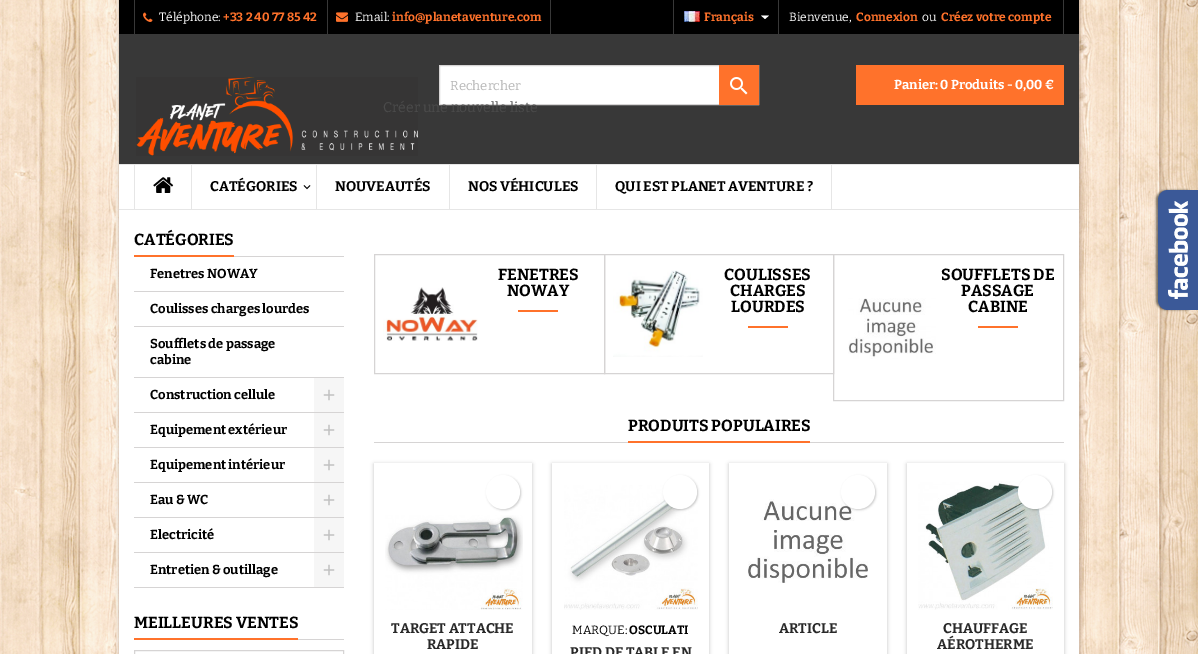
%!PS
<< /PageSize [1198 654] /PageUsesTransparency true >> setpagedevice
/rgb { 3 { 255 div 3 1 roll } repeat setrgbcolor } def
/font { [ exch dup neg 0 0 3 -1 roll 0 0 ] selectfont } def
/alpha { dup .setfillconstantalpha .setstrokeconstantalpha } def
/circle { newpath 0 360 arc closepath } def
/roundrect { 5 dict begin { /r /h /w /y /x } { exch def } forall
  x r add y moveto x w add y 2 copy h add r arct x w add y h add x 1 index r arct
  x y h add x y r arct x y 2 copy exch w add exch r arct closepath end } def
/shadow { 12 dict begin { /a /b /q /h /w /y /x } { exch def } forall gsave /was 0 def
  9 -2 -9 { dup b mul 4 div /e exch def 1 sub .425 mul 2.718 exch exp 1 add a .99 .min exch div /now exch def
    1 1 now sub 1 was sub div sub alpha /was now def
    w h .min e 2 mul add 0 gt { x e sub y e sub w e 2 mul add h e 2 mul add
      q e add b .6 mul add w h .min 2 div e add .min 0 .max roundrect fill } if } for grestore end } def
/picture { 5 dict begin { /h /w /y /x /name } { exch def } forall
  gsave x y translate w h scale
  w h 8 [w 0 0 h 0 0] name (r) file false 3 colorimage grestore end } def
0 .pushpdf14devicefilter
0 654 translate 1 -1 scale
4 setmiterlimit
255 255 255 rgb
0 0 1198 654 rectfill
(img/1.rgb) 0 0 1198 654 picture
0 0 0 rgb
119 0 960 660 0 2 0.2 shadow
[
  [119 165 960 489 255 255 255]
  [119 0 960 34 0 0 0]
  [119 34 960 130 56 56 56]
  [134 0 1 34 56 56 56]
] { aload pop rgb rectfill } forall
(img/2.rgb) 143 12 10 10 picture
550 0 1 34 rectfill
327 0 1 34 rectfill
(img/3.rgb) 336 12 12 10 picture
673 0 1 34 rectfill
(img/4.rgb) 684 11 16 11 picture
255 255 255 rgb
761 15.5 moveto 769 15.5 lineto 765 19 lineto closepath fill
56 56 56 rgb
1063 0 1 34 rectfill
778 0 1 34 rectfill
(img/5.rgb) 136 77 282 79 picture
255 255 255 rgb
440 66 279 38 rectfill
214 212 212 rgb
439.5 65.5 319 39 rectstroke
255 114 43 rgb
719 65 40 40 rectfill
(img/6.rgb) 730 77 18 18 picture
[
  [856 65 208 40 255 114 43]
  [119 164 960 1 230 230 230]
  [119 209 960 1 230 230 230]
  [134 165 1 44 230 230 230]
] { aload pop rgb rectfill } forall
(img/7.rgb) 153 177 21 16 picture
191 165 1 44 rectfill
(img/8.rgb) 303 185 8 5 picture
[
  [316 165 1 44 230 230 230]
  [449 165 1 44 230 230 230]
  [831 165 1 44 230 230 230]
  [596 165 1 44 230 230 230]
  [234 256 110 1 214 212 212]
  [134 255 100 2 255 114 43]
  [134 291 210 1 214 212 212]
  [134 326 210 1 214 212 212]
  [134 377 210 1 214 212 212]
  [134 412 210 1 214 212 212]
  [314 378 30 34 246 246 246]
] { aload pop rgb rectfill } forall
(img/9.rgb) 323 389 12 12 picture
214 212 212 rgb
134 447 210 1 rectfill
246 246 246 rgb
314 413 30 34 rectfill
(img/9.rgb) 323 424 12 12 picture
214 212 212 rgb
134 482 210 1 rectfill
246 246 246 rgb
314 448 30 34 rectfill
(img/9.rgb) 323 459 12 12 picture
214 212 212 rgb
134 517 210 1 rectfill
246 246 246 rgb
314 483 30 34 rectfill
(img/9.rgb) 323 494 12 12 picture
214 212 212 rgb
134 552 210 1 rectfill
246 246 246 rgb
314 518 30 34 rectfill
(img/9.rgb) 323 529 12 12 picture
214 212 212 rgb
134 587 210 1 rectfill
246 246 246 rgb
314 553 30 34 rectfill
(img/9.rgb) 323 564 12 12 picture
214 212 212 rgb
298 639 46 1 rectfill
255 114 43 rgb
134 638 164 2 rectfill
214 212 212 rgb
134.5 650.5 209 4 rectstroke
374.5 254.5 230 119 rectstroke
255 114 43 rgb
518 310 40 2 rectfill
(img/10.rgb) 383 287 95 54 picture
214 212 212 rgb
604.5 254.5 229 119 rectstroke
(img/11.rgb) 613 270 90 87 picture
255 114 43 rgb
748 326 40 2 rectfill
214 212 212 rgb
833.5 254.5 230 146 rectstroke
255 114 43 rgb
978 326 40 2 rectfill
(img/12.rgb) 848 298 88 61 picture
214 212 212 rgb
374 442 690 1 rectfill
255 114 43 rgb
628 441 182 2 rectfill
gsave
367 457 moveto 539 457 lineto 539 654 lineto 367 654 lineto closepath 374 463 moveto 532 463 lineto 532 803 lineto 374 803 lineto closepath eoclip newpath
0 0 0 rgb
374 464 158 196 0 2 0.24 shadow
grestore
0 0 0 rgb
487 476 34 34 17 1 0.2 shadow
255 255 255 rgb
503 492 17 circle fill
(img/13.rgb) 385 515 138 95 picture
gsave
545 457 moveto 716 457 lineto 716 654 lineto 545 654 lineto closepath 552 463 moveto 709 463 lineto 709 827 lineto 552 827 lineto closepath eoclip newpath
0 0 0 rgb
552 464 157 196 0 2 0.24 shadow
grestore
(img/14.rgb) 564 485 134 125 picture
0 0 0 rgb
664 476 34 34 17 1 0.2 shadow
255 255 255 rgb
680 492 17 circle fill
gsave
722 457 moveto 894 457 lineto 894 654 lineto 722 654 lineto closepath 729 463 moveto 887 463 lineto 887 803 lineto 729 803 lineto closepath eoclip newpath
0 0 0 rgb
729 464 158 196 0 2 0.24 shadow
grestore
(img/15.rgb) 748 499 120 84 picture
0 0 0 rgb
842 476 34 34 17 1 0.2 shadow
255 255 255 rgb
858 492 17 circle fill
gsave
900 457 moveto 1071 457 lineto 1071 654 lineto 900 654 lineto closepath 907 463 moveto 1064 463 lineto 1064 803 lineto 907 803 lineto closepath eoclip newpath
0 0 0 rgb
907 464 157 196 0 2 0.24 shadow
grestore
(img/16.rgb) 918 481 135 129 picture
0 0 0 rgb
1019 476 34 34 17 1 0.2 shadow
255 255 255 rgb
1035 492 17 circle fill
0 0 0 rgb
1156 190 40 120 10 1 0.5 shadow
59 89 152 rgb
1168 190 moveto 1198 190 lineto 1198 310 lineto 1168 310 lineto 1162.5 310 1158 305.5 1158 300 curveto 1158 200 lineto 1158 194.5 1162.5 190 1168 190 curveto closepath fill
(img/17.rgb) 1168 201 20 98 picture
/Bitter-Regular 12 font
255 255 255 rgb
159 21 moveto (Téléphone:) show
/Bitter-Bold 12 font
255 114 43 rgb
223 21 moveto (+33 2 40 77 85 42) show
/Bitter-Regular 12 font
255 255 255 rgb
355 21 moveto (Email:) show
/Bitter-Bold 12 font
255 114 43 rgb
392 21 moveto (info@planetaventure.com) show
704 21 moveto (Français) show
/Bitter-Regular 12 font
255 255 255 rgb
789 21 moveto (Bienvenue,) show
/Bitter-Bold 12 font
255 114 43 rgb
856 21 moveto (Connexion) show
/Bitter-Regular 12 font
255 255 255 rgb
922 21 moveto (ou) show
/Bitter-Bold 12 font
255 114 43 rgb
941 21 moveto (Créez votre compte) show
/Bitter-Regular 13 font
183 183 183 rgb
450 90 moveto (Rechercher) show
/Bitter-Bold 13 font
255 255 255 rgb
894 89 moveto (Panier: 0 Produits - 0,00 €) show
/Bitter-Bold 14 font
0 0 0 rgb
[
  [(CATÉGORIES) 210 191]
  [(NOUVEAUTÉS) 335 191]
  [(NOS VÉHICULES) 468 191]
  [(QUI EST PLANET AVENTURE ?) 615 191]
] { aload pop moveto show } forall
/Bitter-Regular 14 font
75 75 75 rgb
383 112 moveto (Créer une nouvelle liste) show
/Bitter-Bold 16 font
0 0 0 rgb
134 245 moveto (CATÉGORIES) show
/Bitter-Bold 13 font
[
  [(Fenetres NOWAY) 150 278]
  [(Coulisses charges lourdes) 150 313]
  [(Soufflets de passage) 150 348]
  [(cabine) 150 364]
  [(Construction cellule) 150 399]
  [(Equipement extérieur) 150 434]
  [(Equipement intérieur) 150 469]
  [(Eau & WC) 150 504]
  [(Electricité) 150 539]
  [(Entretien & outillage) 150 574]
] { aload pop moveto show } forall
/Bitter-Bold 16 font
[
  [(MEILLEURES VENTES) 134 628]
  [(FENETRES) 498 280]
  [(NOWAY) 507 296]
  [(COULISSES) 724 280]
  [(CHARGES) 730 296]
  [(LOURDES) 731 312]
  [(SOUFFLETS DE) 941 280]
  [(PASSAGE) 961 296]
  [(CABINE) 968 312]
  [(PRODUITS POPULAIRES) 628 431]
] { aload pop moveto show } forall
/Bitter-Bold 14 font
41 41 41 rgb
391 633 moveto (TARGET ATTACHE) show
427 649 moveto (RAPIDE) show
/Bitter-Regular 12 font
0 0 0 rgb
572 634 moveto (MARQUE:) show
/Bitter-Bold 12 font
629 634 moveto (OSCULATI) show
/Bitter-Bold 14 font
41 41 41 rgb
[
  [(PIED DE TABLE EN) 570 657]
  [(ARTICLE) 779 633]
  [(CHAUFFAGE) 943 633]
  [(AÉROTHERME) 937 649]
] { aload pop moveto show } forall
.poppdf14devicefilter showpage
